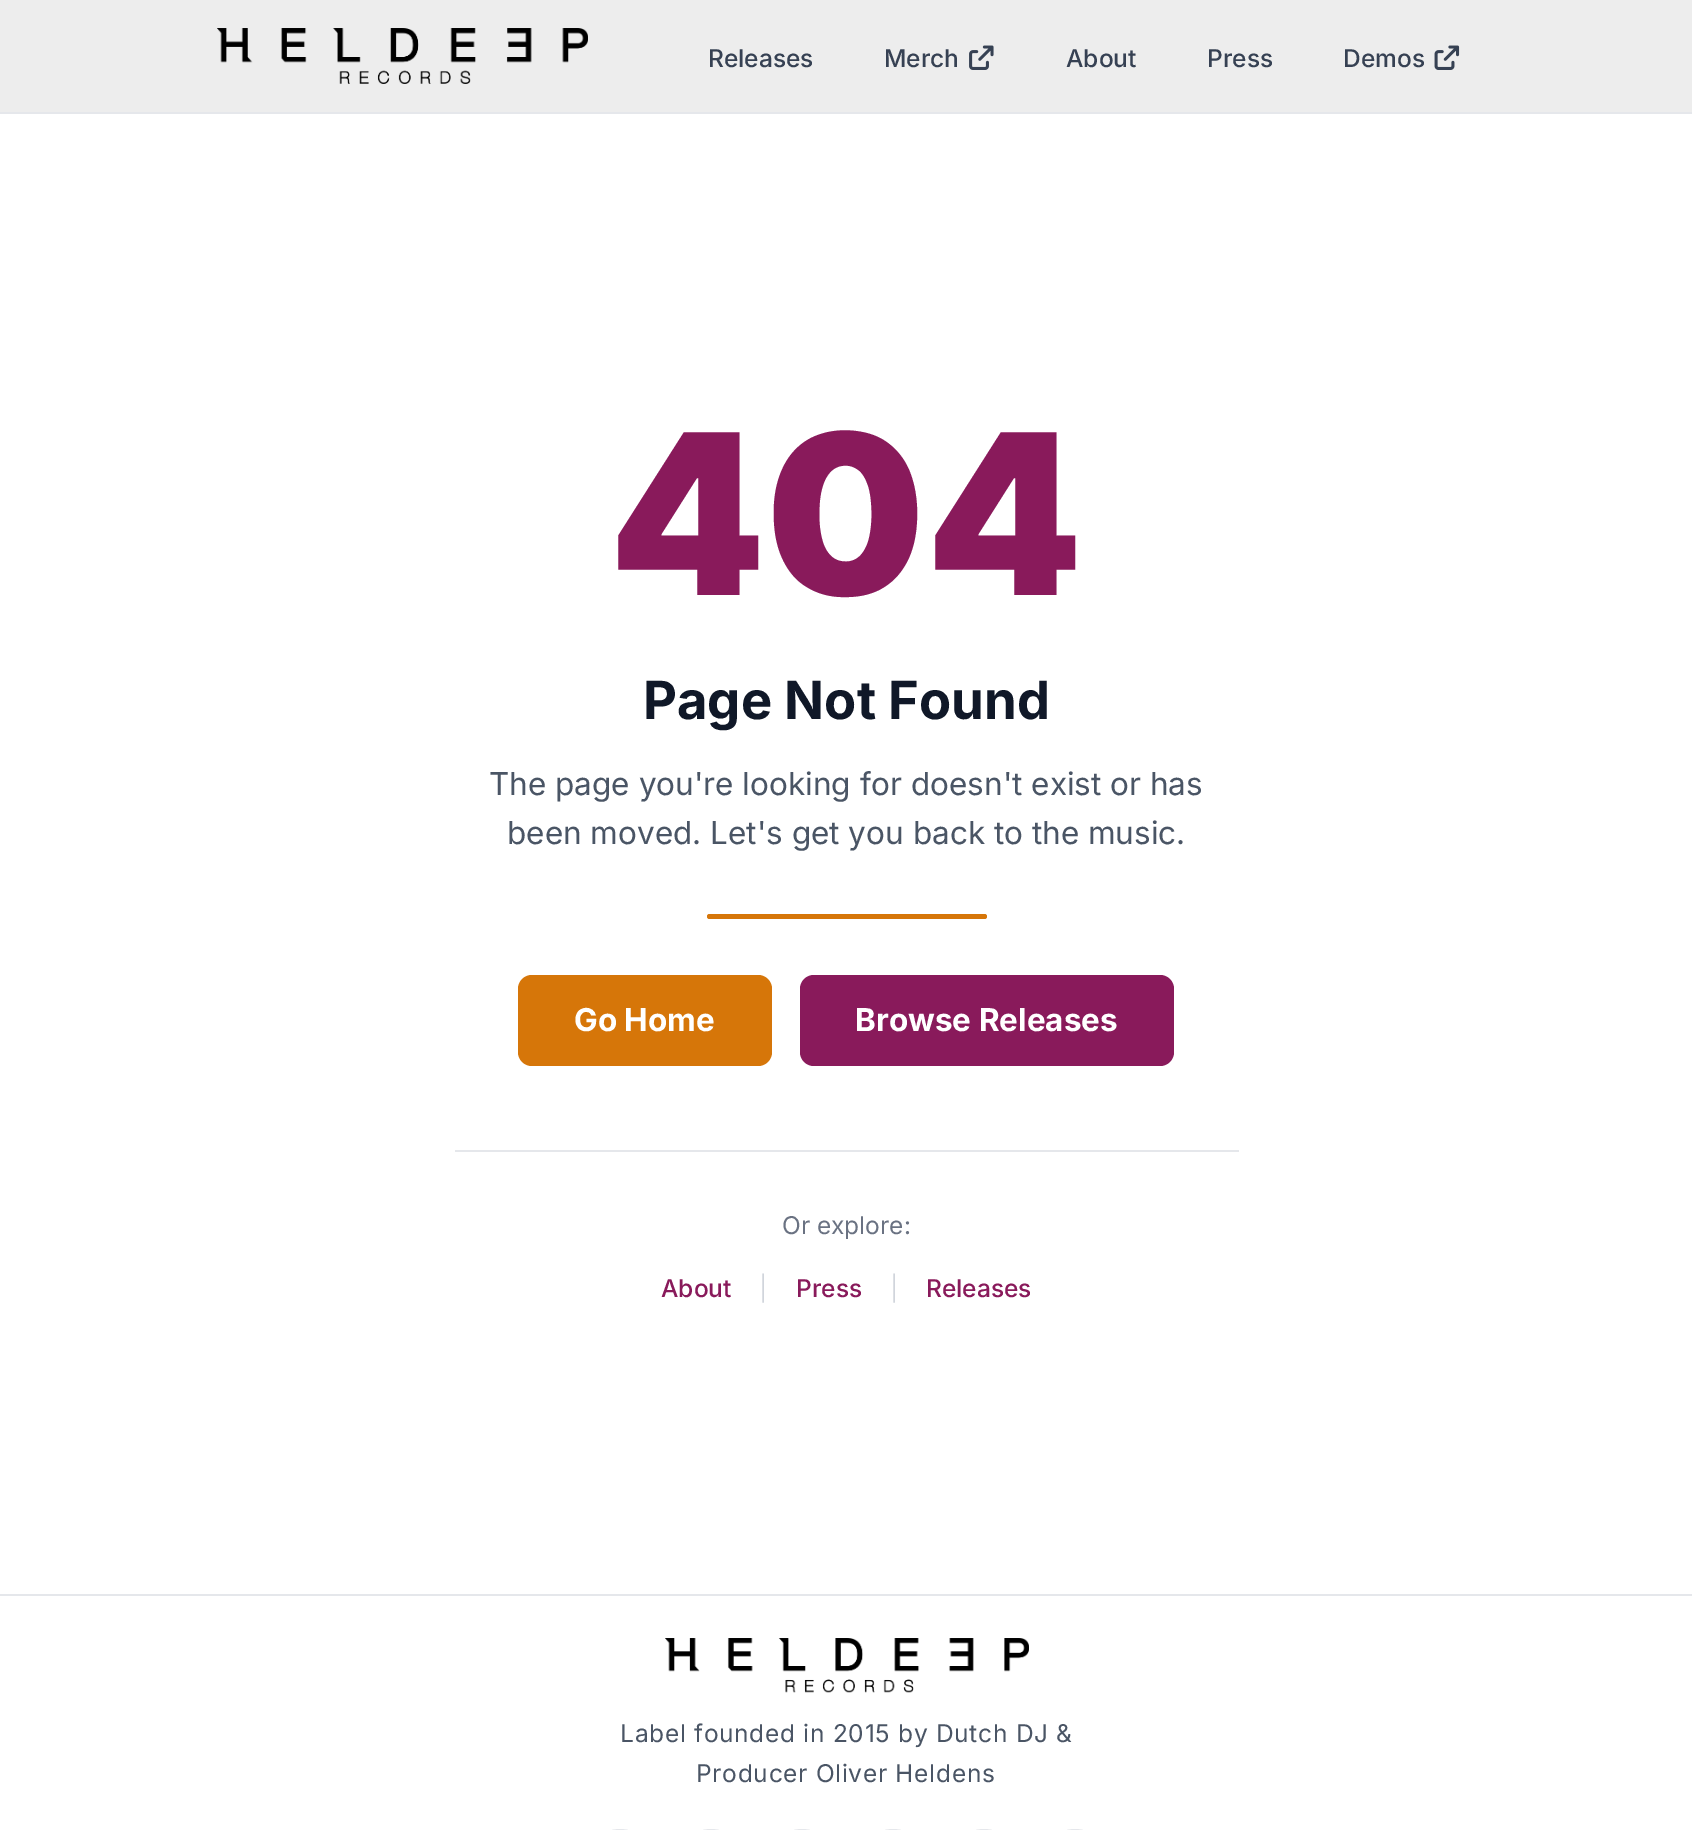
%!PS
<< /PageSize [1692 1830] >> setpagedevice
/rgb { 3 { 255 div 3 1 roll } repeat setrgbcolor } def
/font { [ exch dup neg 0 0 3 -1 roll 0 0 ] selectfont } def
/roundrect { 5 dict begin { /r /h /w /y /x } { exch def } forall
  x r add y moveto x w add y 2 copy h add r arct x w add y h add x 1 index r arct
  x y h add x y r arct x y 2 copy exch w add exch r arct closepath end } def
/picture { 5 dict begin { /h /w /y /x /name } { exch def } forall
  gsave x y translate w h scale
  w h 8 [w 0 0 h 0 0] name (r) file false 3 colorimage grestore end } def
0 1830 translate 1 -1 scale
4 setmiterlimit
255 255 255 rgb
0 0 1692 1830 rectfill
237 237 237 rgb
0 0 1692 112 rectfill
229 231 235 rgb
0 112 1692 2 rectfill
(img/1.rgb) 217 28 371 56 picture
(img/2.rgb) 969 45 25 25 picture
(img/3.rgb) 1434 45 26 25 picture
214 118 9 rgb
707 914 280 5 2.5 roundrect fill
518 975 254 91 14 roundrect fill
137 26 91 rgb
800 975 374 91 14 roundrect fill
229 231 235 rgb
455 1150 784 2 rectfill
0 1594 1692 2 rectfill
(img/4.rgb) 665 1638 364 55 picture
2 setlinewidth
586 1830 68 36 34 roundrect stroke
677 1830 68 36 34 roundrect stroke
768 1830 68 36 34 roundrect stroke
859 1830 68 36 34 roundrect stroke
950 1830 68 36 34 roundrect stroke
1041 1830 68 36 34 roundrect stroke
/Inter-Medium 24.5 font
54 65 83 rgb
[
  [(Releases) 708 67]
  [(Merch) 884 67]
  [(About) 1066 67]
  [(Press) 1207 67]
  [(Demos) 1343 67]
] { aload pop moveto show } forall
/Inter-Black 224 font
137 26 91 rgb
609 595 moveto (404) show
/Inter-Bold 52.5 font
16 24 40 rgb
643 719 moveto (Page Not Found) show
/Inter-Regular 31.5 font
74 85 101 rgb
489 795 moveto (The page you're looking for doesn't exist or has) show
507 844 moveto (been moved. Let's get you back to the music.) show
/Inter-Bold 31.5 font
255 255 255 rgb
574 1031 moveto (Go Home) show
855 1031 moveto (Browse Releases) show
/Inter-Regular 24.5 font
106 114 130 rgb
782 1234 moveto (Or explore:) show
/Inter-Medium 24.5 font
137 26 91 rgb
661 1297 moveto (About) show
/Inter-Regular 24.5 font
209 213 220 rgb
759 1297 moveto (|) show
/Inter-Medium 24.5 font
137 26 91 rgb
796 1297 moveto (Press) show
/Inter-Regular 24.5 font
209 213 220 rgb
890 1297 moveto (|) show
/Inter-Medium 24.5 font
137 26 91 rgb
926 1297 moveto (Releases) show
/Inter-Regular 24.5 font
74 85 101 rgb
620 1742 moveto 0.7 0 (Label founded in 2015 by Dutch DJ &) ashow
696 1782 moveto 0.7 0 (Producer Oliver Heldens) ashow
showpage
